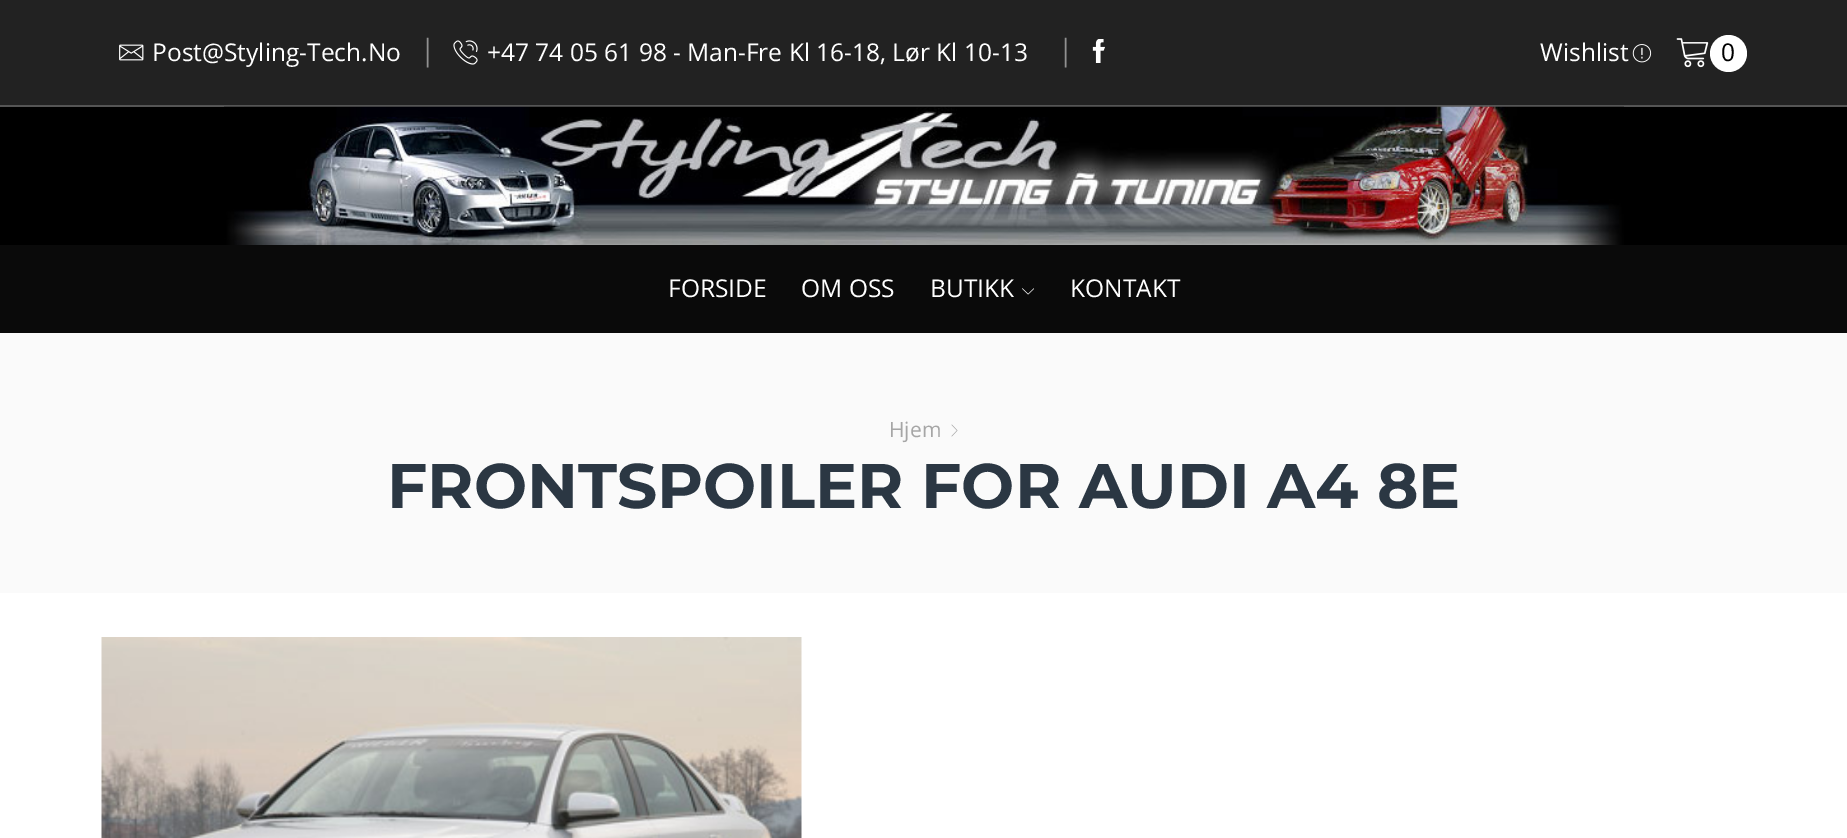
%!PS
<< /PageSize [1847 838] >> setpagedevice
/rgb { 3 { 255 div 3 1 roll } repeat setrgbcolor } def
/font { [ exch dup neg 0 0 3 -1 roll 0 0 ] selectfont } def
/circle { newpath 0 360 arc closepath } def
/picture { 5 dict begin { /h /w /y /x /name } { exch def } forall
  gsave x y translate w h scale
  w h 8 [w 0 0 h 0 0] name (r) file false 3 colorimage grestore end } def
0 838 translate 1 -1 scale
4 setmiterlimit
255 255 255 rgb
0 0 1847 838 rectfill
34 34 34 rgb
0 0 1847 105 rectfill
85 85 85 rgb
0 105 1847 2 rectfill
(img/1.rgb) 119 44 25 17 picture
(img/2.rgb) 453 40 25 25 picture
(img/3.rgb) 1092 39 13 24 picture
(img/4.rgb) 1632 44 20 19 picture
(img/5.rgb) 1676 38 33 30 picture
255 255 255 rgb
1728.5 53.5 18.5 circle fill
0 0 0 rgb
0 107 1847 138 rectfill
(img/6.rgb) 224 106 1400 139 picture
10 10 10 rgb
0 245 1847 88 rectfill
(img/7.rgb) 1022 288 12 7 picture
250 250 250 rgb
0 333 1847 260 rectfill
(img/8.rgb) 951 424 7 13 picture
(img/9.rgb) 101 637 701 201 picture
/OpenSans-Regular 24.5 font
255 255 255 rgb
152 61 moveto (Post@Styling-Tech.No) show
/LiberationSerif-Regular 24.5 font
145 145 145 rgb
419 60 moveto (│) show
/OpenSans-Regular 24.5 font
255 255 255 rgb
487 61 moveto (+47 74 05 61 98 - Man-Fre Kl 16-18, Lør Kl 10-13) show
/LiberationSerif-Regular 24.5 font
145 145 145 rgb
1057 60 moveto (│) show
/OpenSans-Regular 24.5 font
255 255 255 rgb
1540 61 moveto (Wishlist) show
0 0 0 rgb
1721 61 moveto (0) show
255 255 255 rgb
[
  [(FORSIDE) 668 297]
  [(OM OSS) 801 297]
  [(BUTIKK) 930 297]
  [(KONTAKT) 1070 297]
] { aload pop moveto show } forall
/OpenSans-Regular 21 font
166 166 166 rgb
889 437 moveto (Hjem) show
/Montserrat-Bold 63 font
43 55 67 rgb
387 508 moveto (FRONTSPOILER FOR AUDI A4 8E) show
showpage
